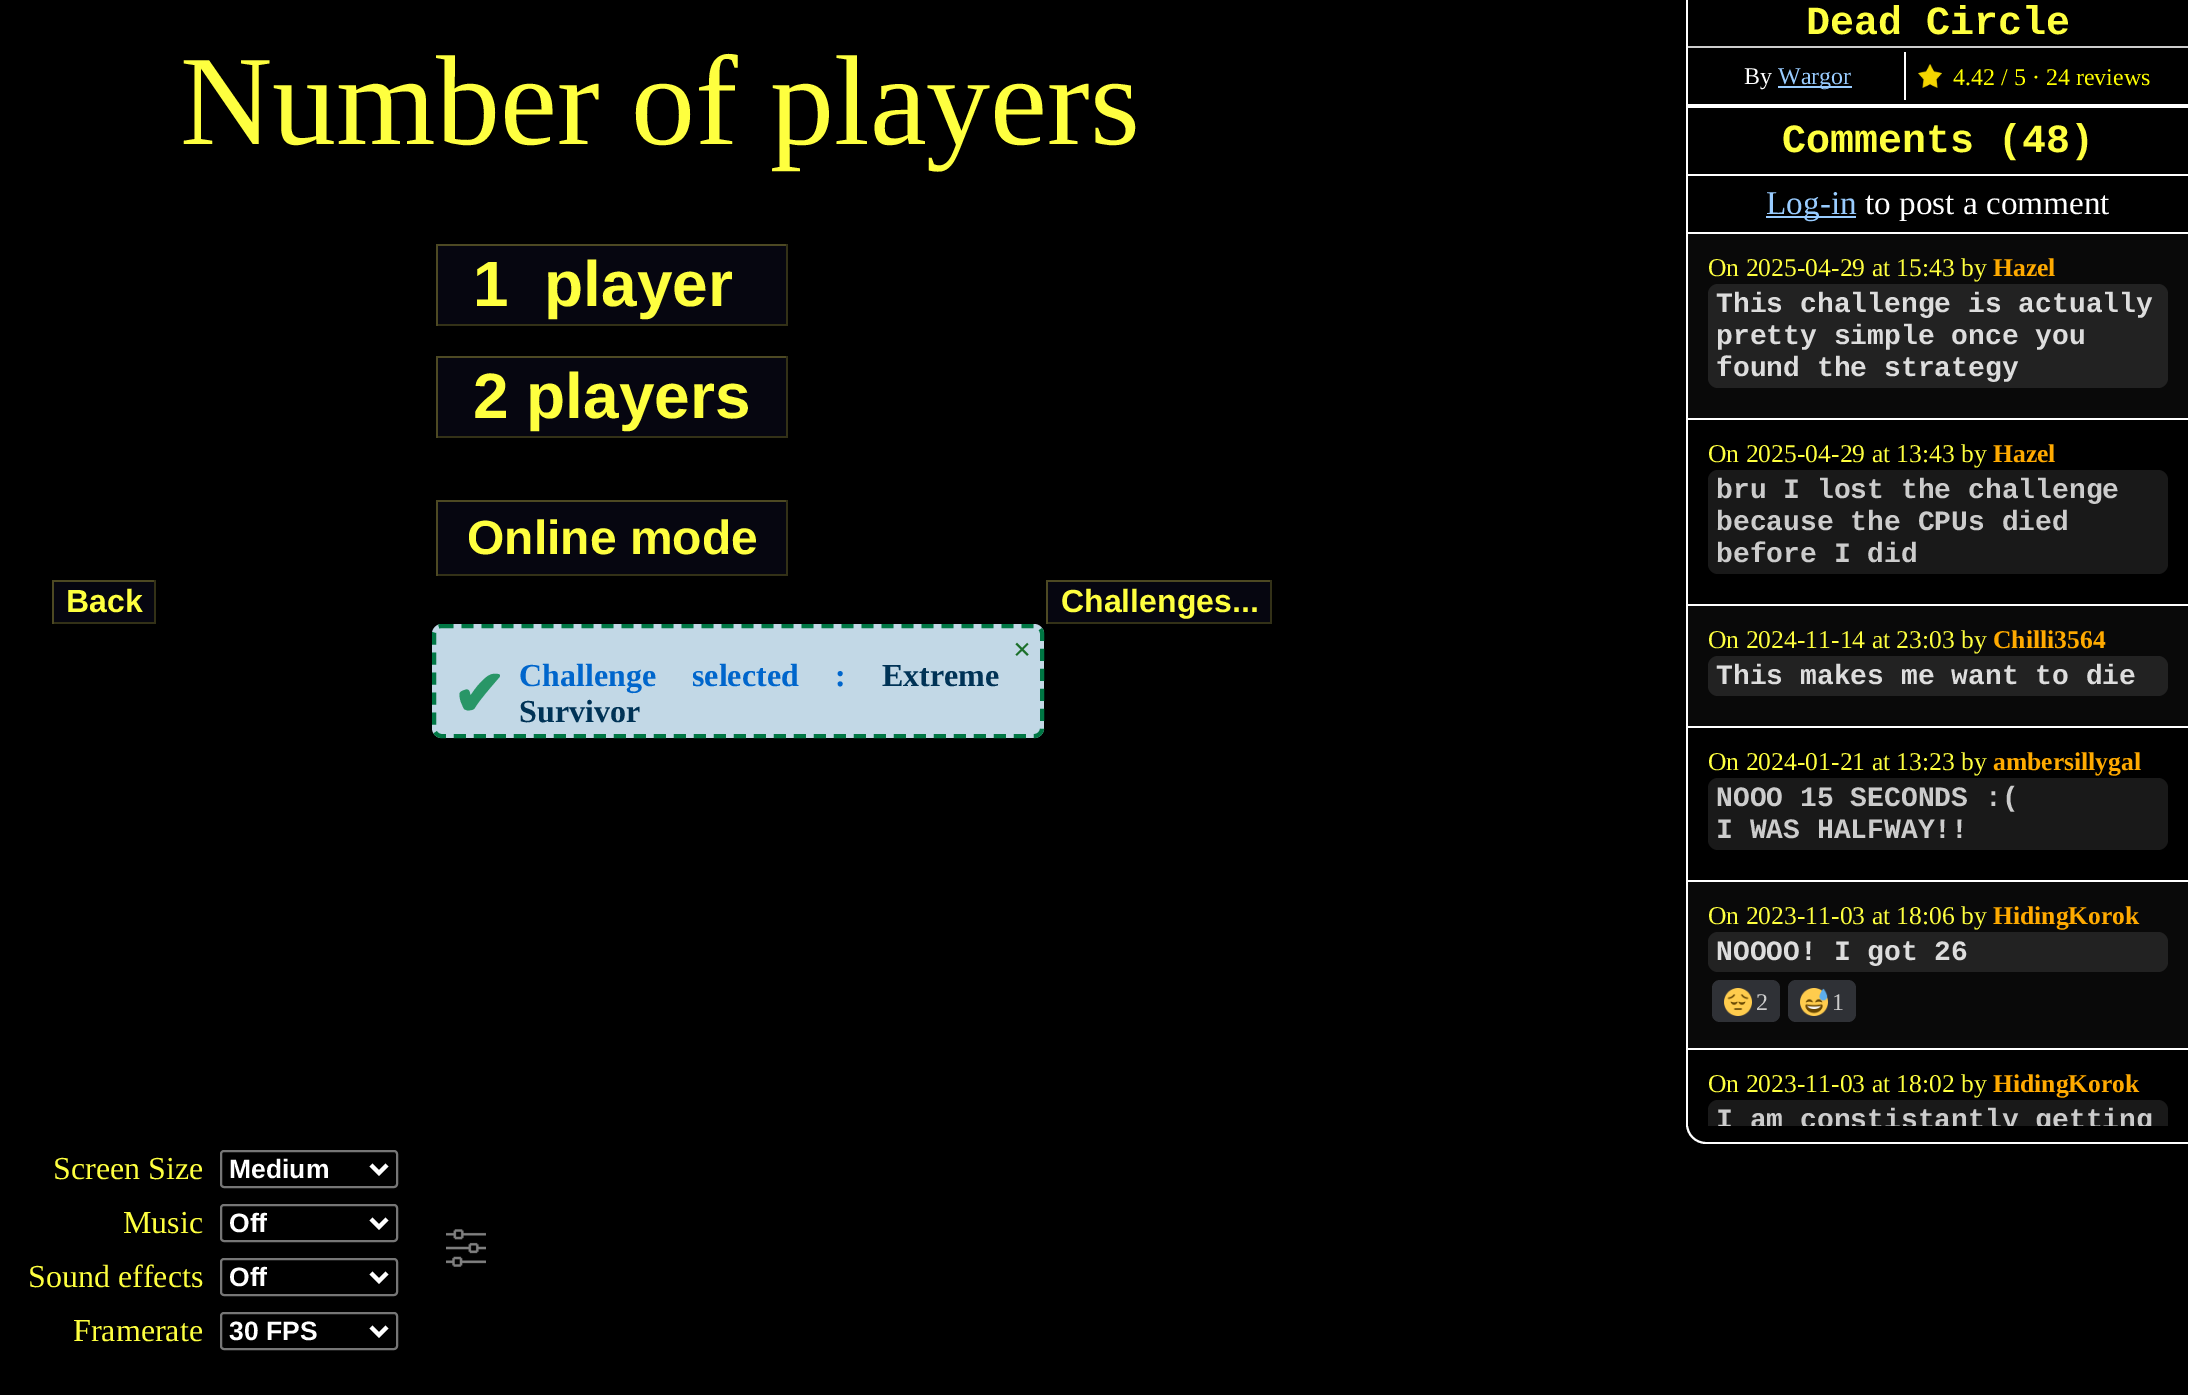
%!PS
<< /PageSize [2188 1395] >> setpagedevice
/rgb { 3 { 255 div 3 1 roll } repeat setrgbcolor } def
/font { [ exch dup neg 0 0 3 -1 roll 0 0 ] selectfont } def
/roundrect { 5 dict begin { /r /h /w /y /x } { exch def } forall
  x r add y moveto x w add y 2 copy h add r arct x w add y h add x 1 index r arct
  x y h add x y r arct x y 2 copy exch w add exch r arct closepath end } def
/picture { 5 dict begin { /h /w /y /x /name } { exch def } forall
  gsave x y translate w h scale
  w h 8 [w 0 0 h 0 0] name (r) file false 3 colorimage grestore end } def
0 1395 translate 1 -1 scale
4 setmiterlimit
0 0 0 rgb
0 0 2188 1395 rectfill
[
  [438 246 348 78 6 6 16]
  [436 244 352 2 77 73 35]
  [786 244 2 82 51 49 23]
  [436 324 352 2 51 49 23]
  [436 244 2 82 77 73 35]
  [438 358 348 78 6 6 16]
  [436 356 352 2 77 73 35]
  [786 356 2 82 51 49 23]
  [436 436 352 2 51 49 23]
  [436 356 2 82 77 73 35]
  [438 502 348 72 6 6 16]
  [436 500 352 2 77 73 35]
  [786 500 2 76 51 49 23]
  [436 574 352 2 51 49 23]
  [436 500 2 76 77 73 35]
  [54 582 100 40 6 6 16]
  [52 580 104 2 77 73 35]
  [154 580 2 44 51 49 23]
  [52 622 104 2 51 49 23]
  [52 580 2 44 77 73 35]
  [1048 582 222 40 6 6 16]
  [1046 580 226 2 77 73 35]
  [1270 580 2 44 51 49 23]
  [1046 622 226 2 51 49 23]
  [1046 580 2 44 77 73 35]
] { aload pop rgb rectfill } forall
255 255 255 rgb
1686 0 moveto 2188 0 lineto 2188 1144 lineto 1706 1144 lineto 1695 1144 1686 1135 1686 1124 curveto closepath 1688 0 moveto 2188 0 lineto 2188 1142 lineto 1706 1142 lineto 1696 1142 1688 1134 1688 1124 curveto closepath eofill
[
  [1688 46 500 2 204 204 204]
  [1904 52 2 48 255 255 255]
  [1778 86 74 2 153 204 255]
] { aload pop rgb rectfill } forall
(img/1.rgb) 1918 64 24 24 picture
[
  [1688 104 500 4 255 255 255]
  [1688 174 500 2 255 255 255]
  [1688 232 500 2 255 255 255]
  [1766 216 90 2 153 204 255]
  [1688 234 500 184 9 9 9]
  [1688 418 500 2 255 255 255]
] { aload pop rgb rectfill } forall
34 34 34 rgb
1708 284 460 104 10 roundrect fill
255 255 255 rgb
1688 604 500 2 rectfill
25 25 25 rgb
1708 470 460 104 10 roundrect fill
9 9 9 rgb
1688 606 500 120 rectfill
255 255 255 rgb
1688 726 500 2 rectfill
34 34 34 rgb
1708 656 460 40 10 roundrect fill
255 255 255 rgb
1688 880 500 2 rectfill
25 25 25 rgb
1708 778 460 72 10 roundrect fill
9 9 9 rgb
1688 882 500 166 rectfill
255 255 255 rgb
1688 1048 500 2 rectfill
34 34 34 rgb
1708 932 460 40 10 roundrect fill
47 49 54 rgb
1712 980 68 42 8 roundrect fill
(img/2.rgb) 1724 988 28 28 picture
1788 980 68 42 8 roundrect fill
(img/3.rgb) 1800 988 28 28 picture
gsave
1688 106 500 1020 rectclip
0 0 0 rgb
1688 1050 moveto 2188 1050 lineto 2188 1142 lineto 1706 1142 lineto 1696 1142 1688 1134 1688 1124 curveto closepath fill
grestore
25 25 25 rgb
1718 1100 moveto 2158 1100 lineto 2163.5 1100 2168 1104.5 2168 1110 curveto 2168 1126 lineto 1708 1126 lineto 1708 1110 lineto 1708 1104.5 1712.5 1100 1718 1100 curveto closepath fill
194 216 230 rgb
432 624 612 114 10 roundrect fill
0 119 68 rgb
4 setlinewidth
[12 8] 0 setdash
441.5 626 moveto 1034.5 626 lineto 1038.5 626 1042 629.5 1042 633.5 curveto 1042 728.5 lineto 1042 732.5 1038.5 736 1034.5 736 curveto 441.5 736 lineto 437.5 736 434 732.5 434 728.5 curveto 434 633.5 lineto 434 629.5 437.5 626 441.5 626 curveto closepath stroke
118 118 118 rgb
2 setlinewidth
[] 0 setdash
221 1151 176 36 3 roundrect stroke
255 255 255 rgb
4 setlinewidth
371 1165 moveto 379 1173 lineto 387 1165 lineto stroke
(img/4.rgb) 446 1229 40 38 picture
118 118 118 rgb
2 setlinewidth
221 1205 176 36 3 roundrect stroke
255 255 255 rgb
4 setlinewidth
371 1219 moveto 379 1227 lineto 387 1219 lineto stroke
118 118 118 rgb
2 setlinewidth
221 1259 176 36 3 roundrect stroke
255 255 255 rgb
4 setlinewidth
371 1273 moveto 379 1281 lineto 387 1273 lineto stroke
118 118 118 rgb
2 setlinewidth
221 1313 176 36 3 roundrect stroke
255 255 255 rgb
4 setlinewidth
371 1327 moveto 379 1335 lineto 387 1327 lineto stroke
/LiberationSerif-Regular 128 font
254 255 63 rgb
180 144 moveto (Number of players) show
/LiberationSans-Bold 64 font
473 306 moveto (1  player) show
473 418 moveto (2 players) show
/LiberationSans-Bold 48 font
467 554 moveto (Online mode) show
/LiberationSans-Bold 32 font
66 612 moveto (Back) show
1061 612 moveto (Challenges...) show
/LiberationMono-Bold 40 font
1806 34 moveto (Dead Circle) show
/LiberationSerif-Regular 24 font
255 255 255 rgb
1744 84 moveto (By) show
153 204 255 rgb
1778 84 moveto (Wargor) show
255 255 0 rgb
1953 85 moveto (4.42 / 5 · 24 reviews) show
/LiberationMono-Bold 40 font
254 255 63 rgb
1782 152 moveto (Comments \(48\)) show
/LiberationSerif-Regular 33.25 font
153 204 255 rgb
1766 214 moveto (Log-in) show
255 255 255 rgb
1865 214 moveto (to post a comment) show
/LiberationSerif-Regular 25.6 font
254 255 63 rgb
1708 276 moveto (On 2025-04-29 at 15:43 by) show
/LiberationSerif-Bold 25.6 font
255 170 0 rgb
1993 276 moveto (Hazel) show
/LiberationMono-Bold 28 font
221 221 221 rgb
[
  [(This challenge is actually) 1716 312]
  [(pretty simple once you) 1716 344]
  [(found the strategy) 1716 376]
] { aload pop moveto show } forall
/LiberationSerif-Regular 25.6 font
254 255 63 rgb
1708 462 moveto (On 2025-04-29 at 13:43 by) show
/LiberationSerif-Bold 25.6 font
255 170 0 rgb
1993 462 moveto (Hazel) show
/LiberationMono-Bold 28 font
204 204 204 rgb
[
  [(bru I lost the challenge) 1716 498]
  [(because the CPUs died) 1716 530]
  [(before I did) 1716 562]
] { aload pop moveto show } forall
/LiberationSerif-Regular 25.6 font
254 255 63 rgb
1708 648 moveto (On 2024-11-14 at 23:03 by) show
/LiberationSerif-Bold 25.6 font
255 170 0 rgb
1993 648 moveto (Chilli3564) show
/LiberationMono-Bold 28 font
221 221 221 rgb
1716 684 moveto (This makes me want to die) show
/LiberationSerif-Regular 25.6 font
254 255 63 rgb
1708 770 moveto (On 2024-01-21 at 13:23 by) show
/LiberationSerif-Bold 25.6 font
255 170 0 rgb
1993 770 moveto (ambersillygal) show
/LiberationMono-Bold 28 font
204 204 204 rgb
1716 806 moveto (NOOO 15 SECONDS :\() show
1716 838 moveto (I WAS HALFWAY!!) show
/LiberationSerif-Regular 25.6 font
254 255 63 rgb
1708 924 moveto (On 2023-11-03 at 18:06 by) show
/LiberationSerif-Bold 25.6 font
255 170 0 rgb
1993 924 moveto (HidingKorok) show
/LiberationMono-Bold 28 font
221 221 221 rgb
1716 960 moveto (NOOOO! I got 26) show
/LiberationSerif-Regular 24 font
204 204 204 rgb
1756 1010 moveto (2) show
1832 1010 moveto (1) show
/LiberationSerif-Regular 25.6 font
254 255 63 rgb
1708 1092 moveto (On 2023-11-03 at 18:02 by) show
/LiberationSerif-Bold 25.6 font
255 170 0 rgb
1993 1092 moveto (HidingKorok) show
gsave
1688 106 500 1020 rectclip
/LiberationMono-Bold 28 font
204 204 204 rgb
1716 1128 moveto (I am constistantly getting) show
grestore
/LiberationSerif-Bold 32 font
28 112 43 rgb
1013 660 moveto (×) show
/DejaVuSans-Bold 64 font
40 150 103 rgb
452 716 moveto (✔) show
/LiberationSerif-Bold 32 font
0 102 204 rgb
519 686 moveto 28 0 32 (Challenge selected :) widthshow
0 51 86 rgb
882 686 moveto (Extreme) show
519 722 moveto (Survivor) show
/LiberationSerif-Regular 32 font
254 255 63 rgb
53 1179 moveto (Screen Size) show
/LiberationSans-Bold 26.5 font
255 255 255 rgb
229 1178 moveto (Medium) show
/LiberationSerif-Regular 32 font
254 255 63 rgb
123 1233 moveto (Music) show
/LiberationSans-Bold 26.5 font
255 255 255 rgb
229 1232 moveto (Off) show
/LiberationSerif-Regular 32 font
254 255 63 rgb
28 1287 moveto (Sound effects) show
/LiberationSans-Bold 26.5 font
255 255 255 rgb
229 1286 moveto (Off) show
/LiberationSerif-Regular 32 font
254 255 63 rgb
73 1341 moveto (Framerate) show
/LiberationSans-Bold 26.5 font
255 255 255 rgb
229 1340 moveto (30 FPS) show
showpage
